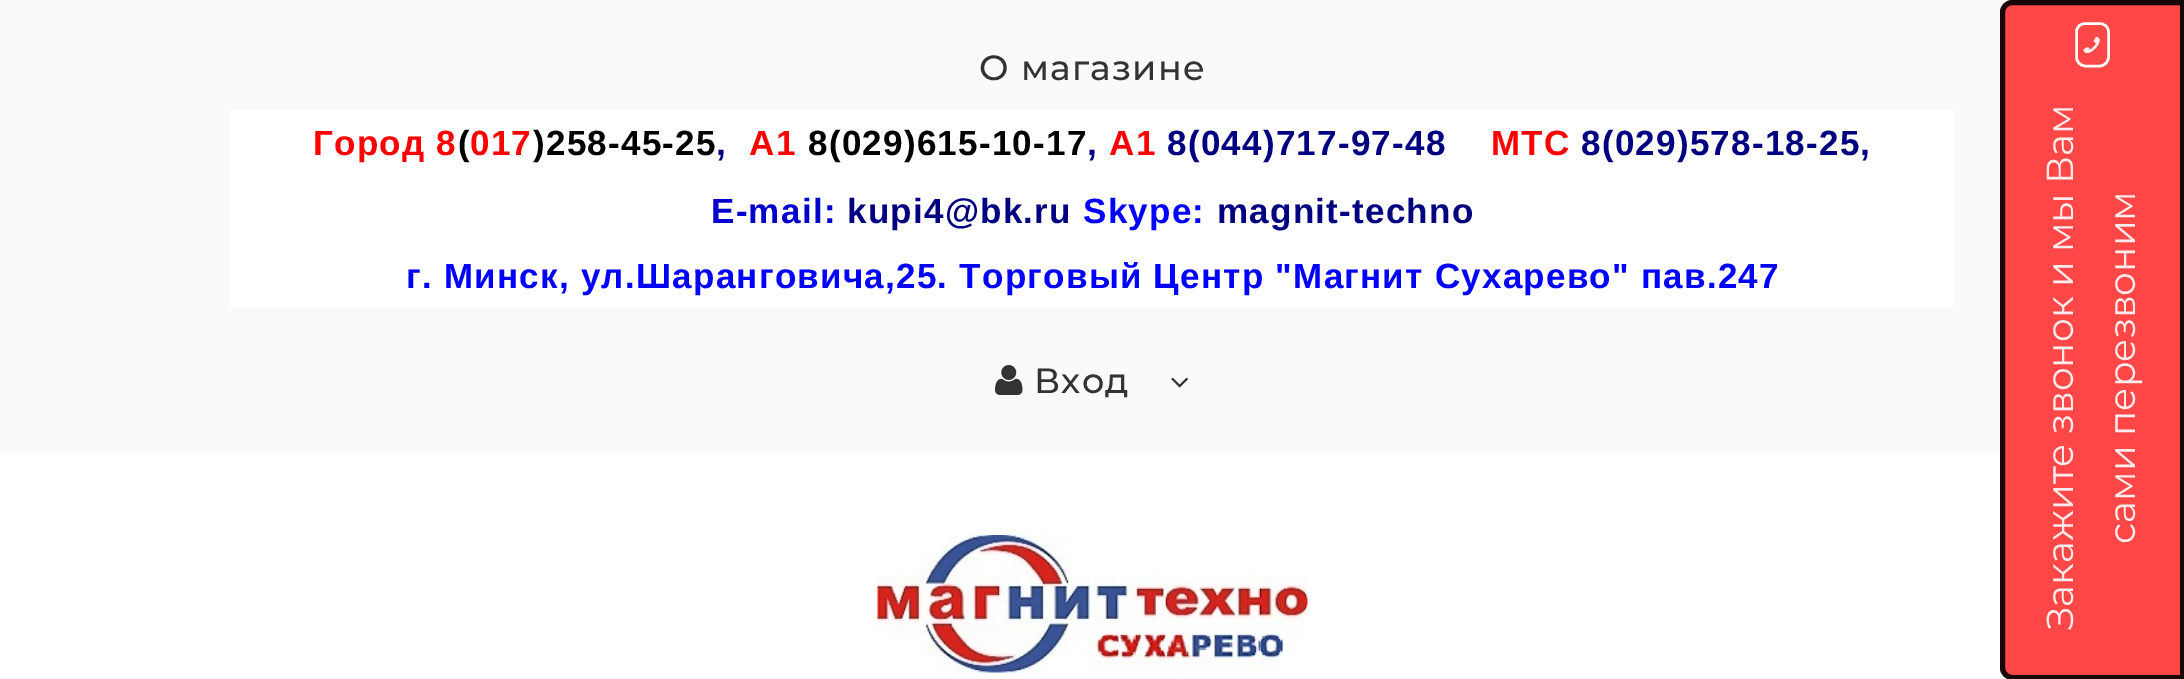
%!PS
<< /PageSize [2184 679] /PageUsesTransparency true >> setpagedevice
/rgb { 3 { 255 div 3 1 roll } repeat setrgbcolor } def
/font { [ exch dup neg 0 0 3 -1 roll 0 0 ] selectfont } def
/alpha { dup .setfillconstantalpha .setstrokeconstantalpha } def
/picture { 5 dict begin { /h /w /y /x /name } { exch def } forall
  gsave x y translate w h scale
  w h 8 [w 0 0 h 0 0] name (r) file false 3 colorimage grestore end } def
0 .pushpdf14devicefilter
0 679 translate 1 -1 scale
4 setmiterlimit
255 255 255 rgb
0 0 2184 679 rectfill
250 250 250 rgb
0 0 2184 453 rectfill
255 255 255 rgb
230 110 1725 198 rectfill
(img/1.rgb) 995 365 28 30 picture
(img/2.rgb) 1171 377 17 11 picture
(img/3.rgb) 877 535 431 138 picture
0.9 alpha
255 51 51 rgb
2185 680 moveto 2013 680 lineto 2006 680 2000 674 2000 668 curveto 2000 12 lineto 2000 6 2006 0 2013 0 curveto 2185 0 lineto closepath fill
0 0 0 rgb
5 setlinewidth
2182.5 677.5 moveto 2012.5 677.5 lineto 2007 677.5 2002.5 673 2002.5 667.5 curveto 2002.5 12.5 lineto 2002.5 7 2007 2.5 2012.5 2.5 curveto 2182.5 2.5 lineto closepath stroke
1 alpha
(img/4.rgb) 2083 36 17 18 picture
255 255 255 rgb
2.5 setlinewidth
2076.5 57 moveto 2076.5 32 lineto 2076.5 27 2080.5 23.5 2085.5 23.5 curveto 2099.5 23.5 lineto 2104.5 23.5 2108.5 27 2108.5 32 curveto 2108.5 57 lineto 2108.5 62 2104.5 66 2099.5 66 curveto 2085.5 66 lineto 2080.5 66 2076.5 62 2076.5 57 curveto closepath stroke
/Montserrat-Medium 35 font
51 51 51 rgb
979 80 moveto 1.25 0 (О магазине) ashow
/LiberationSans-Bold 35 font
255 0 0 rgb
313 155 moveto 1.25 0 (Город 8) ashow
0 0 0 rgb
458 155 moveto 1.25 0 (\() ashow
255 0 0 rgb
470 155 moveto 1.25 0 (017) ashow
0 0 0 rgb
533 155 moveto 1.25 0 (\)258-45-25) ashow
0 0 128 rgb
716 155 moveto 1.25 0 (,) ashow
255 0 0 rgb
749 155 moveto 1.25 0 (A1) ashow
0 0 0 rgb
808 155 moveto 1.25 0 (8\(029\)615-10-17) ashow
0 0 128 rgb
1087 155 moveto 1.25 0 (,) ashow
255 0 0 rgb
1109 155 moveto 1.25 0 (А1) ashow
0 0 128 rgb
1167 155 moveto 1.25 0 (8\(044\)717-97-48) ashow
255 0 0 rgb
1491 155 moveto 1.25 0 (МТС) ashow
0 0 128 rgb
1581 155 moveto 1.25 0 (8\(029\)578-18-25,) ashow
0 0 205 rgb
711 223 moveto 1.25 0 (E-mail:) ashow
0 0 128 rgb
847 223 moveto 1.25 0 (kupi4@bk.ru) ashow
0 0 255 rgb
1083 223 moveto 1.25 0 (Skype:) ashow
0 0 128 rgb
1217 223 moveto 1.25 0 (magnit-techno) ashow
0 0 255 rgb
406 288 moveto 1.25 0 (г. Минск, ул.Шаранговича,25. Торговый Центр "Магнит Сухарево" пав.247) ashow
/Montserrat-Medium 35 font
51 51 51 rgb
1034 393 moveto 1.25 0 (Вход) ashow
/Montserrat-Regular 37.5 font
255 237 237 rgb
gsave 2073 630 translate -90 rotate 0 0 moveto -0.5 0 32 (Закажите звонок и мы Вам) widthshow grestore
gsave 2135 544 translate -90 rotate 0 0 moveto (сами перезвоним) show grestore
.poppdf14devicefilter showpage
